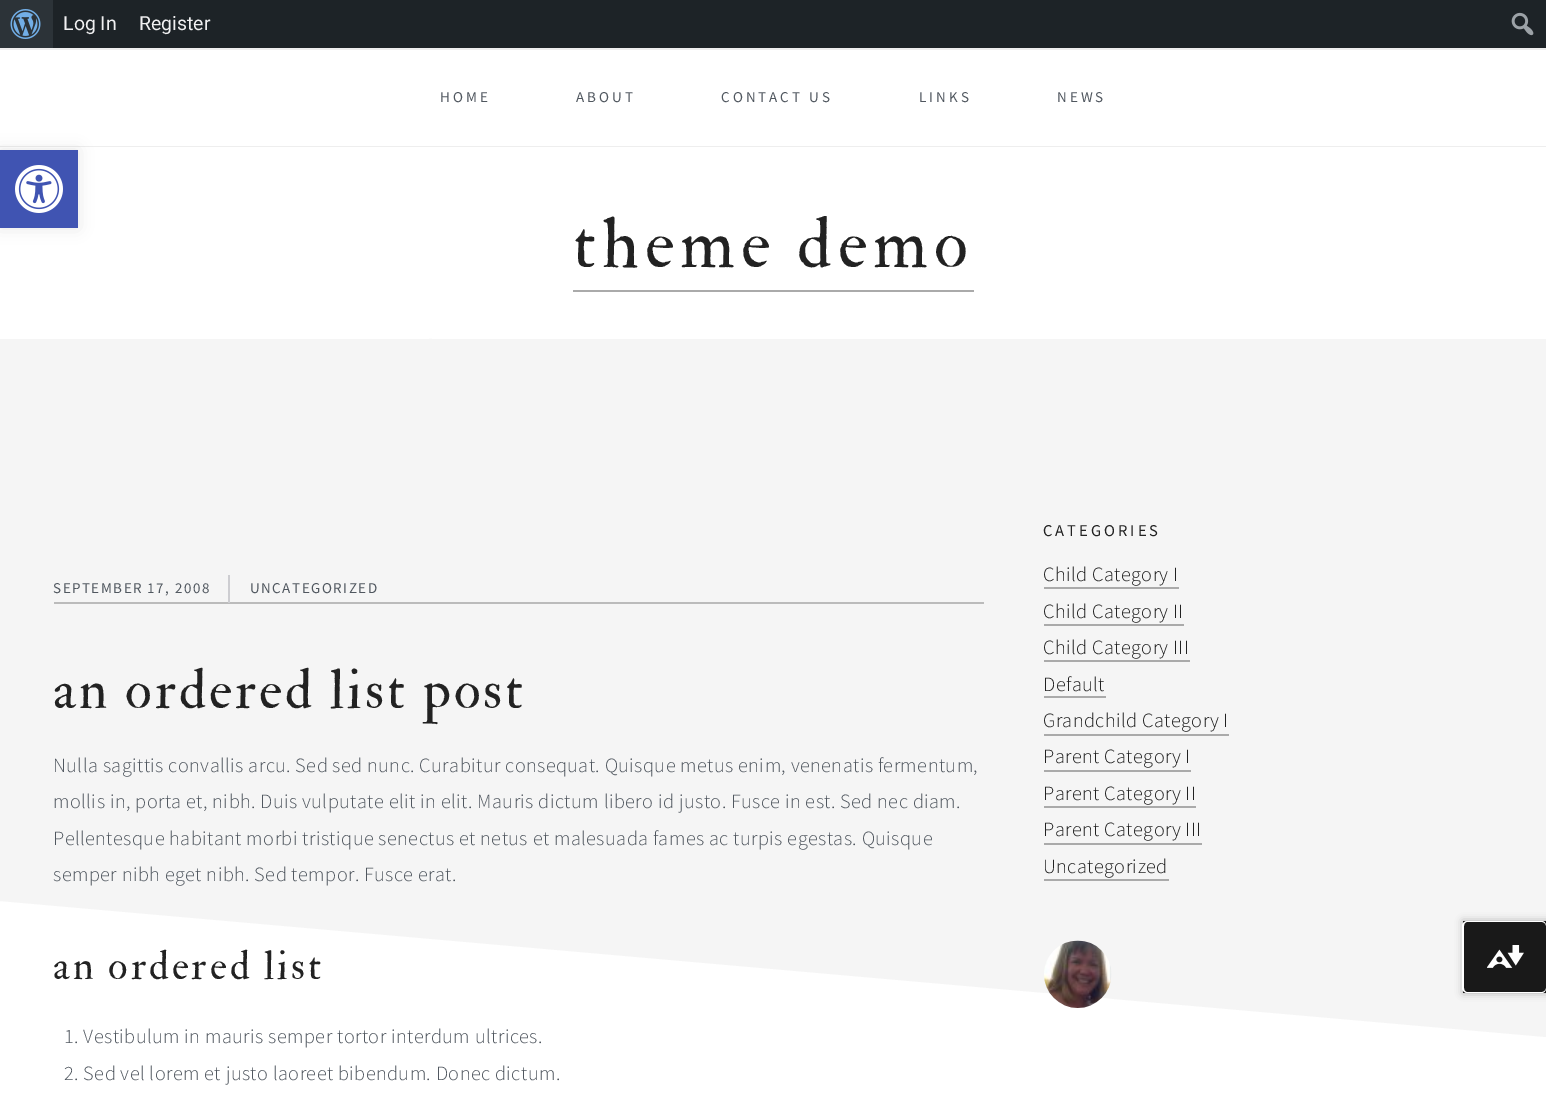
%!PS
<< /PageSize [1546 1102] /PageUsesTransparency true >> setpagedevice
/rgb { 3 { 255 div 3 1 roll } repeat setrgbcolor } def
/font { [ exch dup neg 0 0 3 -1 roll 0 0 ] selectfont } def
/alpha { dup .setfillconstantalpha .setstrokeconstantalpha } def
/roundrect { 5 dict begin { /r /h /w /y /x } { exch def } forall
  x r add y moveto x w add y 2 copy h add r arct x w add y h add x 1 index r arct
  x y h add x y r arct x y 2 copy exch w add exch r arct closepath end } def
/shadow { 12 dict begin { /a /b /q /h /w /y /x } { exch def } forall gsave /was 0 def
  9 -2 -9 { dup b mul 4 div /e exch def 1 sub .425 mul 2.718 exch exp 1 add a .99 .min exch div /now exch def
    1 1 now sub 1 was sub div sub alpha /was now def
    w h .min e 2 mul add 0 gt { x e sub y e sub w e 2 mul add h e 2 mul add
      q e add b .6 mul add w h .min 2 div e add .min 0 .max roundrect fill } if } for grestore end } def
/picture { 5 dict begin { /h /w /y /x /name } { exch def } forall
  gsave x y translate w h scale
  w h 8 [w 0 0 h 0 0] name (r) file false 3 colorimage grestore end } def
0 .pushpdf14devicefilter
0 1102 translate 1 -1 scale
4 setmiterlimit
255 255 255 rgb
0 0 1546 1102 rectfill
29 35 39 rgb
53 0 1493 48 rectfill
44 51 56 rgb
0 0 53 48 rectfill
(img/1.rgb) 10 9 31 30 picture
(img/2.rgb) 1511 12 23 24 picture
238 238 238 rgb
0 146 1546 1 rectfill
0 0 0 rgb
0 150 78 78 0 7.5 0.1 shadow
64 84 178 rgb
0 150 78 78 rectfill
(img/3.rgb) 15 165 48 48 picture
238 238 238 rgb
0 48 1546 2 rectfill
245 245 245 rgb
432 339 1114 98 rectfill
0 301 moveto 1546 437 lineto 1546 1037 lineto 0 901 lineto closepath fill
[
  [0 301 429 38 255 255 255]
  [573 290 401 2 170 170 170]
  [54 602 930 2 187 187 187]
  [228 575 2 28 205 205 209]
  [1044 587 135 2 170 170 170]
  [1044 624 140 2 170 170 170]
  [1044 660 146 2 170 170 170]
  [1044 696 62 2 170 170 170]
  [1044 734 185 2 170 170 170]
  [1044 770 147 2 170 170 170]
  [1044 806 152 2 170 170 170]
  [1044 843 158 2 170 170 170]
  [1044 879 125 2 170 170 170]
] { aload pop rgb rectfill } forall
(img/4.rgb) 1044 940 68 68 picture
0 0 0 rgb
1463 921 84 72 0 4 0.3 shadow
25 25 25 rgb
1463 921 83 72 rectfill
255 255 255 rgb
1467 921 moveto 1542 921 lineto 1544 921 1546 923 1546 926 curveto 1546 988 lineto 1546 991 1544 993 1542 993 curveto 1467 993 lineto 1465 993 1462 991 1462 988 curveto 1462 926 lineto 1462 923 1465 921 1467 921 curveto closepath 1467 922 moveto 1542 922 lineto 1544 922 1546 924 1546 926 curveto 1546 988 lineto 1546 990 1544 992 1542 992 curveto 1467 992 lineto 1465 992 1464 990 1464 988 curveto 1464 926 lineto 1464 924 1465 922 1467 922 curveto closepath eofill
(img/5.rgb) 1487 945 37 23 picture
/Roboto-Regular 19.5 font
240 240 241 rgb
63 30 moveto (Log In) show
139 30 moveto (Register) show
/SourceSansPro-Regular 15 font
80 87 95 rgb
440 102 moveto 3 0 (HOME) ashow
576 102 moveto 3 0 (ABOUT) ashow
721 102 moveto 3 0 (CONTACT US) ashow
919 102 moveto 3 0 (LINKS) ashow
1057 102 moveto 3 0 (NEWS) ashow
/IMFELLDoublePica-Regular 70.5 font
34 34 34 rgb
573 267 moveto 6 0 (theme demo) ashow
/SourceSansPro-Regular 15 font
80 87 95 rgb
53 593 moveto 1.5 0 (SEPTEMBER 17, 2008) ashow
250 593 moveto 1.5 0 (UNCATEGORIZED) ashow
/IMFELLDoublePica-Regular 55.5 font
34 34 34 rgb
53 708 moveto 3 0 (an ordered list post) ashow
/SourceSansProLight-Light 20.25 font
80 87 95 rgb
53 772 moveto 0.41 0 (Nulla sagittis convallis arcu. Sed sed nunc. Curabitur consequat. Quisque metus enim, venenatis fermentum,) ashow
53 808 moveto 0.41 0 (mollis in, porta et, nibh. Duis vulputate elit in elit. Mauris dictum libero id justo. Fusce in est. Sed nec diam.) ashow
53 845 moveto 0.41 0 (Pellentesque habitant morbi tristique senectus et netus et malesuada fames ac turpis egestas. Quisque) ashow
53 881 moveto 0.41 0 (semper nibh eget nibh. Sed tempor. Fusce erat.) ashow
/IMFELLDoublePica-Regular 40.5 font
34 34 34 rgb
53 979 moveto 3 0 (an ordered list) ashow
/SourceSansProLight-Light 20.25 font
80 87 95 rgb
64 1043 moveto 0.41 0 (1. Vestibulum in mauris semper tortor interdum ultrices.) ashow
64 1080 moveto 0.41 0 (2. Sed vel lorem et justo laoreet bibendum. Donec dictum.) ashow
/SourceSansPro-Regular 16.5 font
34 34 34 rgb
1043 536 moveto 3 0 (CATEGORIES) ashow
/SourceSansProLight-Light 20.25 font
1043 581 moveto 0.41 0 (Child Category I) ashow
1043 618 moveto 0.41 0 (Child Category II) ashow
1043 654 moveto 0.41 0 (Child Category III) ashow
1043 691 moveto 0.41 0 (Default) ashow
1043 727 moveto 0.41 0 (Grandchild Category I) ashow
1043 763 moveto 0.41 0 (Parent Category I) ashow
1043 800 moveto 0.41 0 (Parent Category II) ashow
1043 836 moveto 0.41 0 (Parent Category III) ashow
1043 873 moveto 0.41 0 (Uncategorized) ashow
.poppdf14devicefilter showpage
